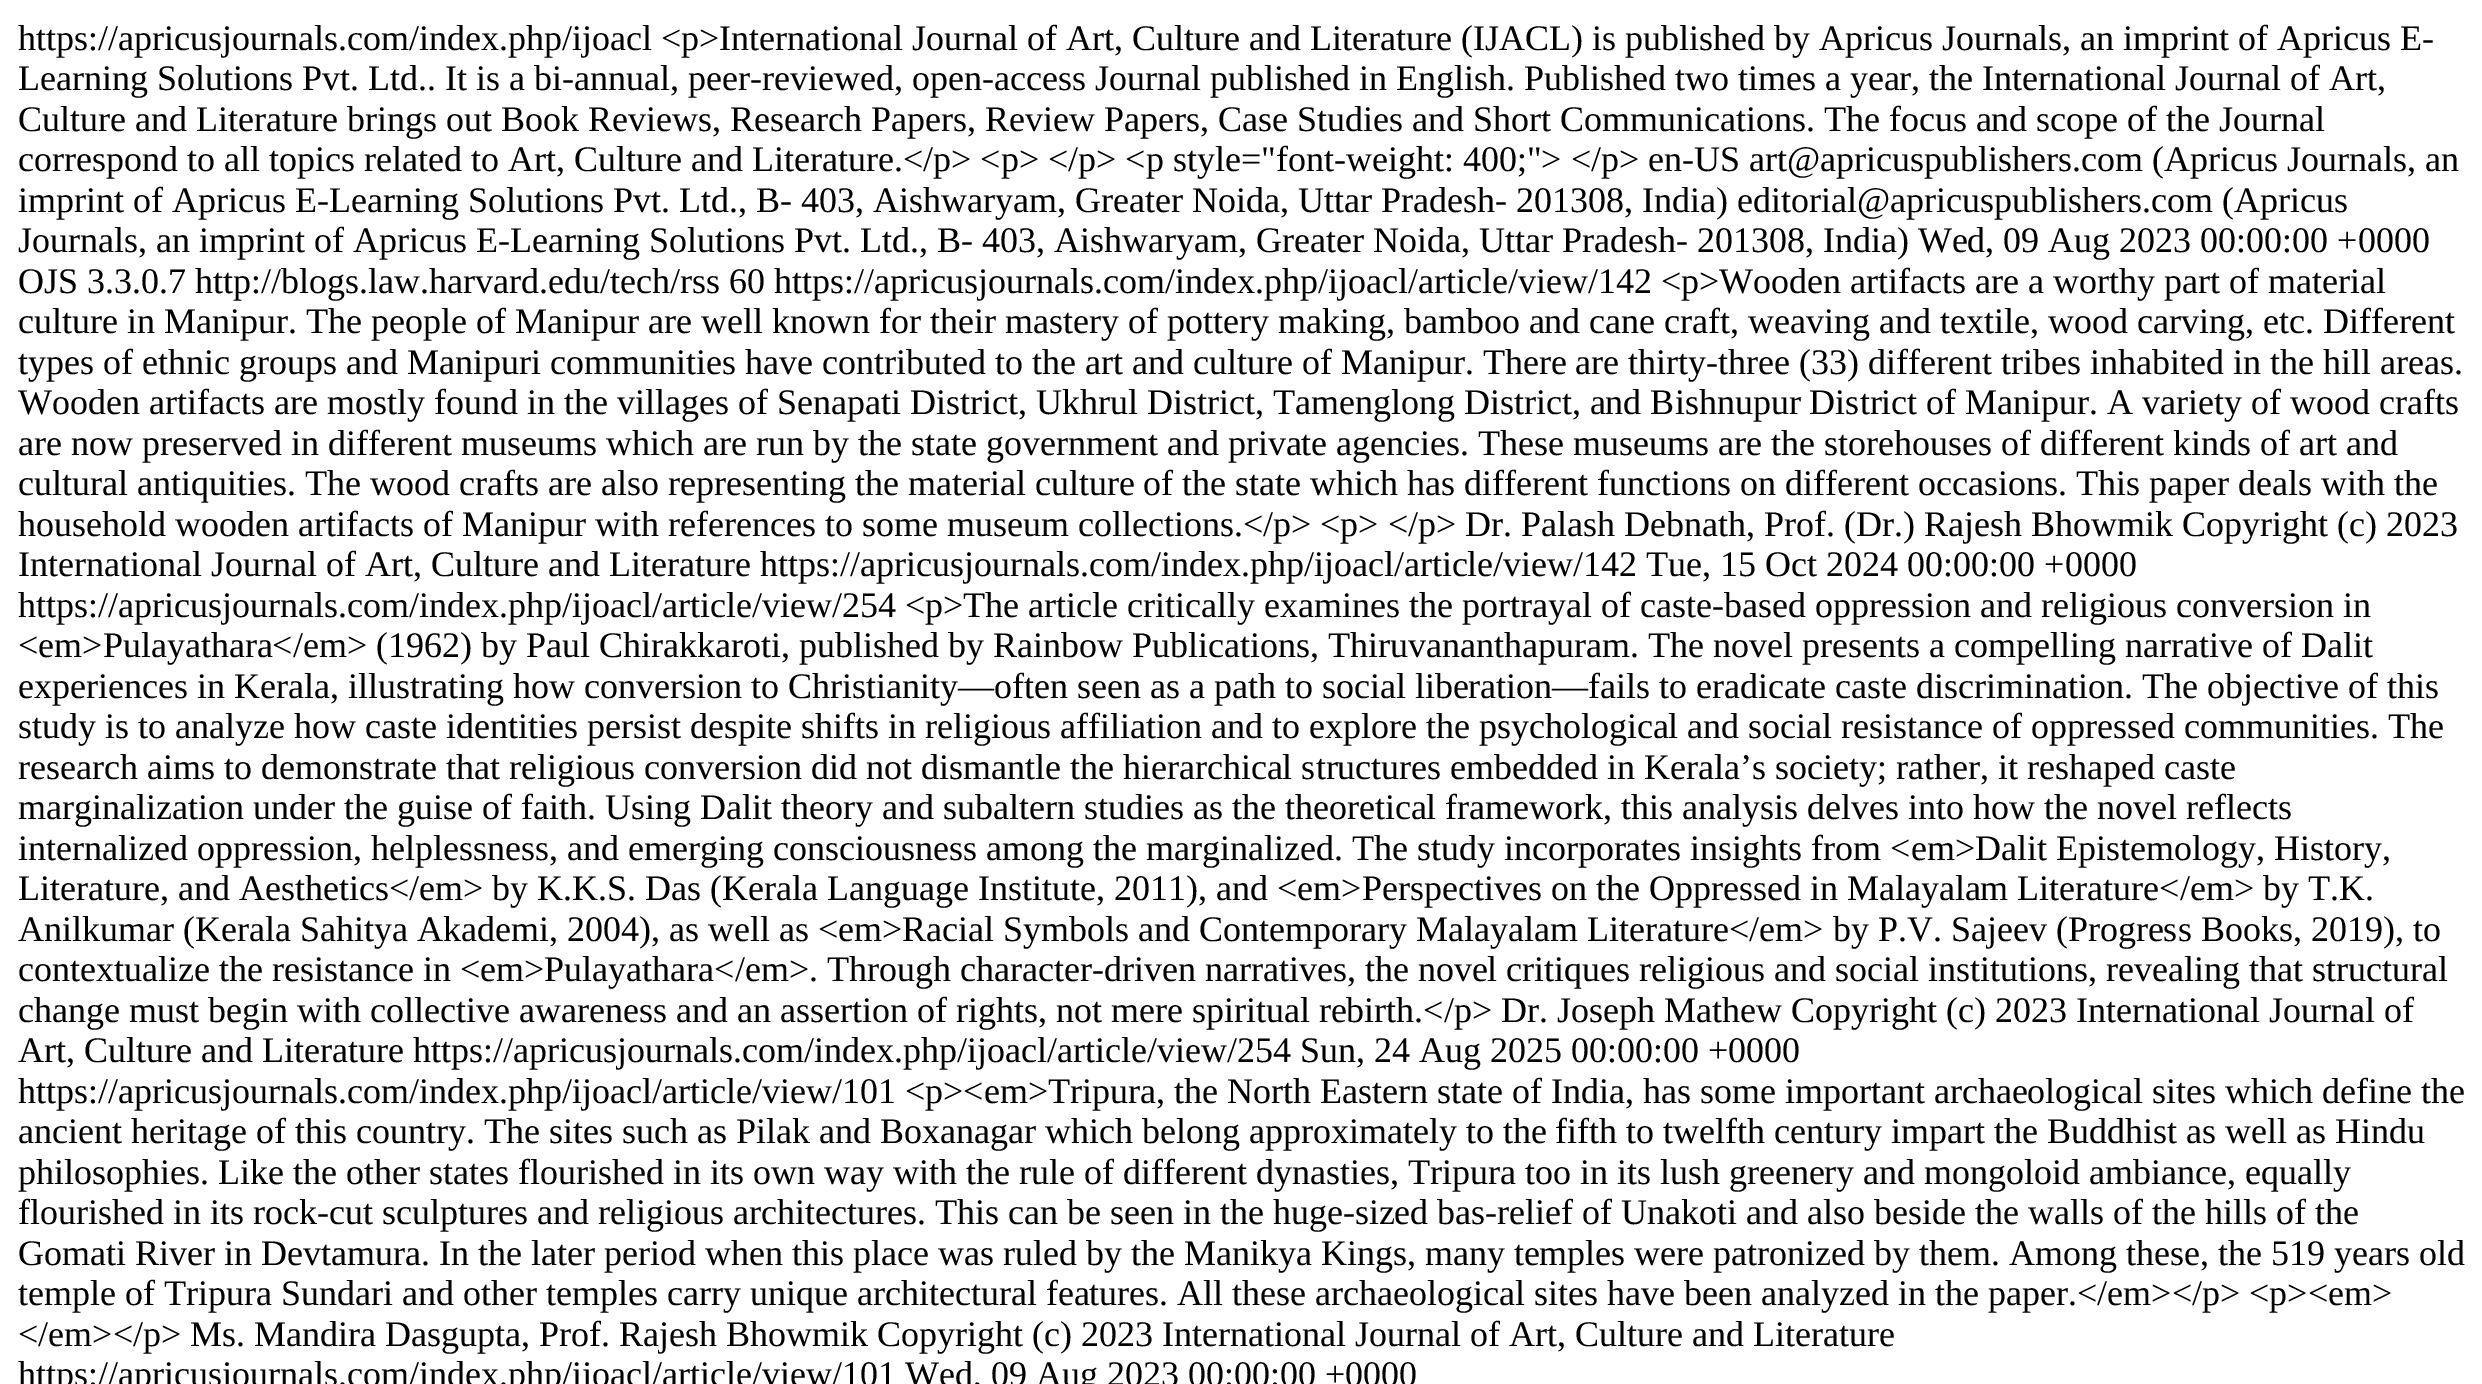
%!PS
<< /PageSize [2482 1384] >> setpagedevice
/rgb { 3 { 255 div 3 1 roll } repeat setrgbcolor } def
/font { [ exch dup neg 0 0 3 -1 roll 0 0 ] selectfont } def
0 1384 translate 1 -1 scale
4 setmiterlimit
255 255 255 rgb
0 0 2482 1384 rectfill
/LiberationSerif-Regular 36 font
0 0 0 rgb
[
  [(https://apricusjournals.com/index.php/ijoacl <p>International Journal of Art, Culture and Literature \(IJACL\) is published by Apricus Journals, an imprint of Apricus E-) 18 50]
  [(Learning Solutions Pvt. Ltd.. It is a bi-annual, peer-reviewed, open-access Journal published in English. Published two times a year, the International Journal of Art,) 18 90]
  [(Culture and Literature brings out Book Reviews, Research Papers, Review Papers, Case Studies and Short Communications. The focus and scope of the Journal) 18 131]
  [(correspond to all topics related to Art, Culture and Literature.</p> <p> </p> <p style="font-weight: 400;"> </p> en-US art@apricuspublishers.com \(Apricus Journals, an) 18 171]
  [(imprint of Apricus E-Learning Solutions Pvt. Ltd., B- 403, Aishwaryam, Greater Noida, Uttar Pradesh- 201308, India\) editorial@apricuspublishers.com \(Apricus) 18 212]
  [(Journals, an imprint of Apricus E-Learning Solutions Pvt. Ltd., B- 403, Aishwaryam, Greater Noida, Uttar Pradesh- 201308, India\) Wed, 09 Aug 2023 00:00:00 +0000) 18 252]
  [(OJS 3.3.0.7 http://blogs.law.harvard.edu/tech/rss 60 https://apricusjournals.com/index.php/ijoacl/article/view/142 <p>Wooden artifacts are a worthy part of material) 18 293]
  [(culture in Manipur. The people of Manipur are well known for their mastery of pottery making, bamboo and cane craft, weaving and textile, wood carving, etc. Different) 18 333]
  [(types of ethnic groups and Manipuri communities have contributed to the art and culture of Manipur. There are thirty-three \(33\) different tribes inhabited in the hill areas.) 18 374]
  [(Wooden artifacts are mostly found in the villages of Senapati District, Ukhrul District, Tamenglong District, and Bishnupur District of Manipur. A variety of wood crafts) 18 414]
  [(are now preserved in different museums which are run by the state government and private agencies. These museums are the storehouses of different kinds of art and) 18 455]
  [(cultural antiquities. The wood crafts are also representing the material culture of the state which has different functions on different occasions. This paper deals with the) 18 495]
  [(household wooden artifacts of Manipur with references to some museum collections.</p> <p> </p> Dr. Palash Debnath, Prof. \(Dr.\) Rajesh Bhowmik Copyright \(c\) 2023) 18 536]
  [(International Journal of Art, Culture and Literature https://apricusjournals.com/index.php/ijoacl/article/view/142 Tue, 15 Oct 2024 00:00:00 +0000) 18 576]
  [(https://apricusjournals.com/index.php/ijoacl/article/view/254 <p>The article critically examines the portrayal of caste-based oppression and religious conversion in) 18 617]
  [(<em>Pulayathara</em> \(1962\) by Paul Chirakkaroti, published by Rainbow Publications, Thiruvananthapuram. The novel presents a compelling narrative of Dalit) 18 657]
  [(experiences in Kerala, illustrating how conversion to Christianity—often seen as a path to social liberation—fails to eradicate caste discrimination. The objective of this) 18 698]
  [(study is to analyze how caste identities persist despite shifts in religious affiliation and to explore the psychological and social resistance of oppressed communities. The) 18 738]
  [(research aims to demonstrate that religious conversion did not dismantle the hierarchical structures embedded in Kerala’s society; rather, it reshaped caste) 18 779]
  [(marginalization under the guise of faith. Using Dalit theory and subaltern studies as the theoretical framework, this analysis delves into how the novel reflects) 18 819]
  [(internalized oppression, helplessness, and emerging consciousness among the marginalized. The study incorporates insights from <em>Dalit Epistemology, History,) 18 860]
  [(Literature, and Aesthetics</em> by K.K.S. Das \(Kerala Language Institute, 2011\), and <em>Perspectives on the Oppressed in Malayalam Literature</em> by T.K.) 18 900]
  [(Anilkumar \(Kerala Sahitya Akademi, 2004\), as well as <em>Racial Symbols and Contemporary Malayalam Literature</em> by P.V. Sajeev \(Progress Books, 2019\), to) 18 941]
  [(contextualize the resistance in <em>Pulayathara</em>. Through character-driven narratives, the novel critiques religious and social institutions, revealing that structural) 18 981]
  [(change must begin with collective awareness and an assertion of rights, not mere spiritual rebirth.</p> Dr. Joseph Mathew Copyright \(c\) 2023 International Journal of) 18 1022]
  [(Art, Culture and Literature https://apricusjournals.com/index.php/ijoacl/article/view/254 Sun, 24 Aug 2025 00:00:00 +0000) 18 1062]
  [(https://apricusjournals.com/index.php/ijoacl/article/view/101 <p><em>Tripura, the North Eastern state of India, has some important archaeological sites which define the) 18 1103]
  [(ancient heritage of this country. The sites such as Pilak and Boxanagar which belong approximately to the fifth to twelfth century impart the Buddhist as well as Hindu) 18 1143]
  [(philosophies. Like the other states flourished in its own way with the rule of different dynasties, Tripura too in its lush greenery and mongoloid ambiance, equally) 18 1184]
  [(flourished in its rock-cut sculptures and religious architectures. This can be seen in the huge-sized bas-relief of Unakoti and also beside the walls of the hills of the) 18 1224]
  [(Gomati River in Devtamura. In the later period when this place was ruled by the Manikya Kings, many temples were patronized by them. Among these, the 519 years old) 18 1265]
  [(temple of Tripura Sundari and other temples carry unique architectural features. All these archaeological sites have been analyzed in the paper.</em></p> <p><em>) 18 1305]
  [(</em></p> Ms. Mandira Dasgupta, Prof. Rajesh Bhowmik Copyright \(c\) 2023 International Journal of Art, Culture and Literature) 18 1346]
  [(https://apricusjournals.com/index.php/ijoacl/article/view/101 Wed, 09 Aug 2023 00:00:00 +0000) 18 1386]
] { aload pop moveto show } forall
showpage
